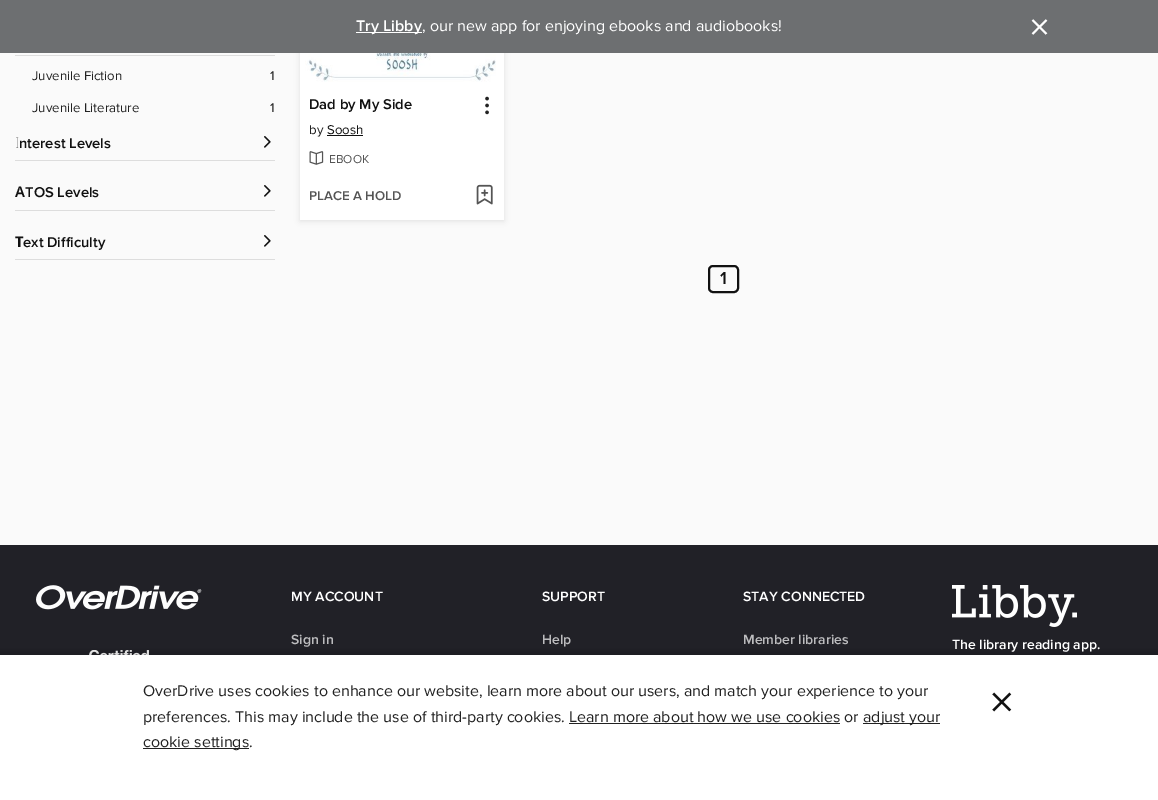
%!PS
<< /PageSize [1158 800] /PageUsesTransparency true >> setpagedevice
/rgb { 3 { 255 div 3 1 roll } repeat setrgbcolor } def
/font { [ exch dup neg 0 0 3 -1 roll 0 0 ] selectfont } def
/alpha { dup .setfillconstantalpha .setstrokeconstantalpha } def
/roundrect { 5 dict begin { /r /h /w /y /x } { exch def } forall
  x r add y moveto x w add y 2 copy h add r arct x w add y h add x 1 index r arct
  x y h add x y r arct x y 2 copy exch w add exch r arct closepath end } def
/shadow { 12 dict begin { /a /b /q /h /w /y /x } { exch def } forall gsave /was 0 def
  9 -2 -9 { dup b mul 4 div /e exch def 1 sub .425 mul 2.718 exch exp 1 add a .99 .min exch div /now exch def
    1 1 now sub 1 was sub div sub alpha /was now def
    w h .min e 2 mul add 0 gt { x e sub y e sub w e 2 mul add h e 2 mul add
      q e add b .6 mul add w h .min 2 div e add .min 0 .max roundrect fill } if } for grestore end } def
/picture { 5 dict begin { /h /w /y /x /name } { exch def } forall
  gsave x y translate w h scale
  w h 8 [w 0 0 h 0 0] name (r) file false 3 colorimage grestore end } def
0 .pushpdf14devicefilter
0 800 translate 1 -1 scale
4 setmiterlimit
250 250 250 rgb
0 0 1158 800 rectfill
221 221 221 rgb
300 -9 204 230 0 3 1 shadow
[
  [0 0 1158 53 109 111 113]
  [356 32 66 1 255 255 255]
  [15 55 260 1 221 221 221]
] { aload pop rgb rectfill } forall
(img/1.rgb) 264 136 7 12 picture
15 160 260 1 rectfill
(img/1.rgb) 264 185 7 12 picture
15 210 260 1 rectfill
(img/1.rgb) 264 235 7 12 picture
15 259 260 1 rectfill
255 255 255 rgb
300 53 204 167 rectfill
(img/2.rgb) 305 53 191 29 picture
(img/3.rgb) 485 96 4 19 picture
17 17 17 rgb
327 135 36 1 rectfill
(img/4.rgb) 309 151 15 14 picture
(img/5.rgb) 476 184 17 21 picture
2 setlinewidth
709 266 29 26 4 roundrect stroke
33 33 39 rgb
0 545 1158 110 rectfill
(img/6.rgb) 36 585 166 25 picture
(img/7.rgb) 89 650 60 5 picture
(img/8.rgb) 952 585 125 42 picture
0 0 0 rgb
-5 650 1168 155 0 2.5 0.15 shadow
[
  [0 655 1158 145 255 255 255]
  [569 723 271 1 34 34 34]
  [863 723 77 1 34 34 34]
  [143 748 106 1 34 34 34]
] { aload pop rgb rectfill } forall
/ProximaNova-SemiBold 16 font
255 255 255 rgb
356 31 moveto (Try Libby) show
/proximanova-Regular 16 font
422 31 moveto (, our new app for enjoying ebooks and audiobooks!) show
/proximanova-Regular 42 font
1029 41 moveto (×) show
/proximanova-Regular 13.25 font
34 34 34 rgb
[
  [(Juvenile Fiction) 32 80]
  [(1) 270 80]
  [(Juvenile Literature) 32 112]
  [(1) 270 112]
] { aload pop moveto show } forall
/NotoSans-Thin 14.75 font
17 17 17 rgb
15 148 moveto (I) show
/ProximaNova-SemiBold 14.75 font
19 148 moveto (nterest Levels) show
/NotoSans-SemiBold 14.75 font
15 197 moveto (A) show
/ProximaNova-SemiBold 14.75 font
25 197 moveto (TOS Levels) show
/NotoSans-Bold 14.75 font
15 247 moveto (T) show
/ProximaNova-SemiBold 14.75 font
23 247 moveto (ext Difficulty) show
309 109 moveto (Dad by My Side) show
/proximanova-Regular 13.25 font
34 34 34 rgb
309 134 moveto (by) show
17 17 17 rgb
327 134 moveto (Soosh) show
/proximanova-Regular 12 font
85 85 85 rgb
329 163 moveto (EBOOK) show
/ProximaNova-SemiBold 13.25 font
309 200 moveto (PLACE A HOLD) show
/ProximaNova-SemiBold 18 font
17 17 17 rgb
720 284 moveto (1) show
/ProximaNova-SemiBold 14 font
255 255 255 rgb
291 601 moveto (MY ACCOUNT) show
188 188 190 rgb
291 644 moveto (Sign in) show
255 255 255 rgb
542 601 moveto (SUPPORT) show
188 188 190 rgb
542 644 moveto (Help) show
255 255 255 rgb
743 601 moveto (STAY CONNECTED) show
188 188 190 rgb
743 644 moveto (Member libraries) show
255 255 255 rgb
952 649 moveto (The library reading app.) show
/proximanova-Regular 16 font
34 34 34 rgb
[
  [(OverDrive uses cookies to enhance our website, learn more about our users, and match your experience to your) 143 696]
  [(preferences. This may include the use of third-party cookies. Learn more about how we use cookies or) 143 722]
  [(adjust your) 863 722]
  [(cookie settings.) 143 747]
] { aload pop moveto show } forall
/proximanova-Regular 51 font
17 17 17 rgb
989 719 moveto (×) show
.poppdf14devicefilter showpage
